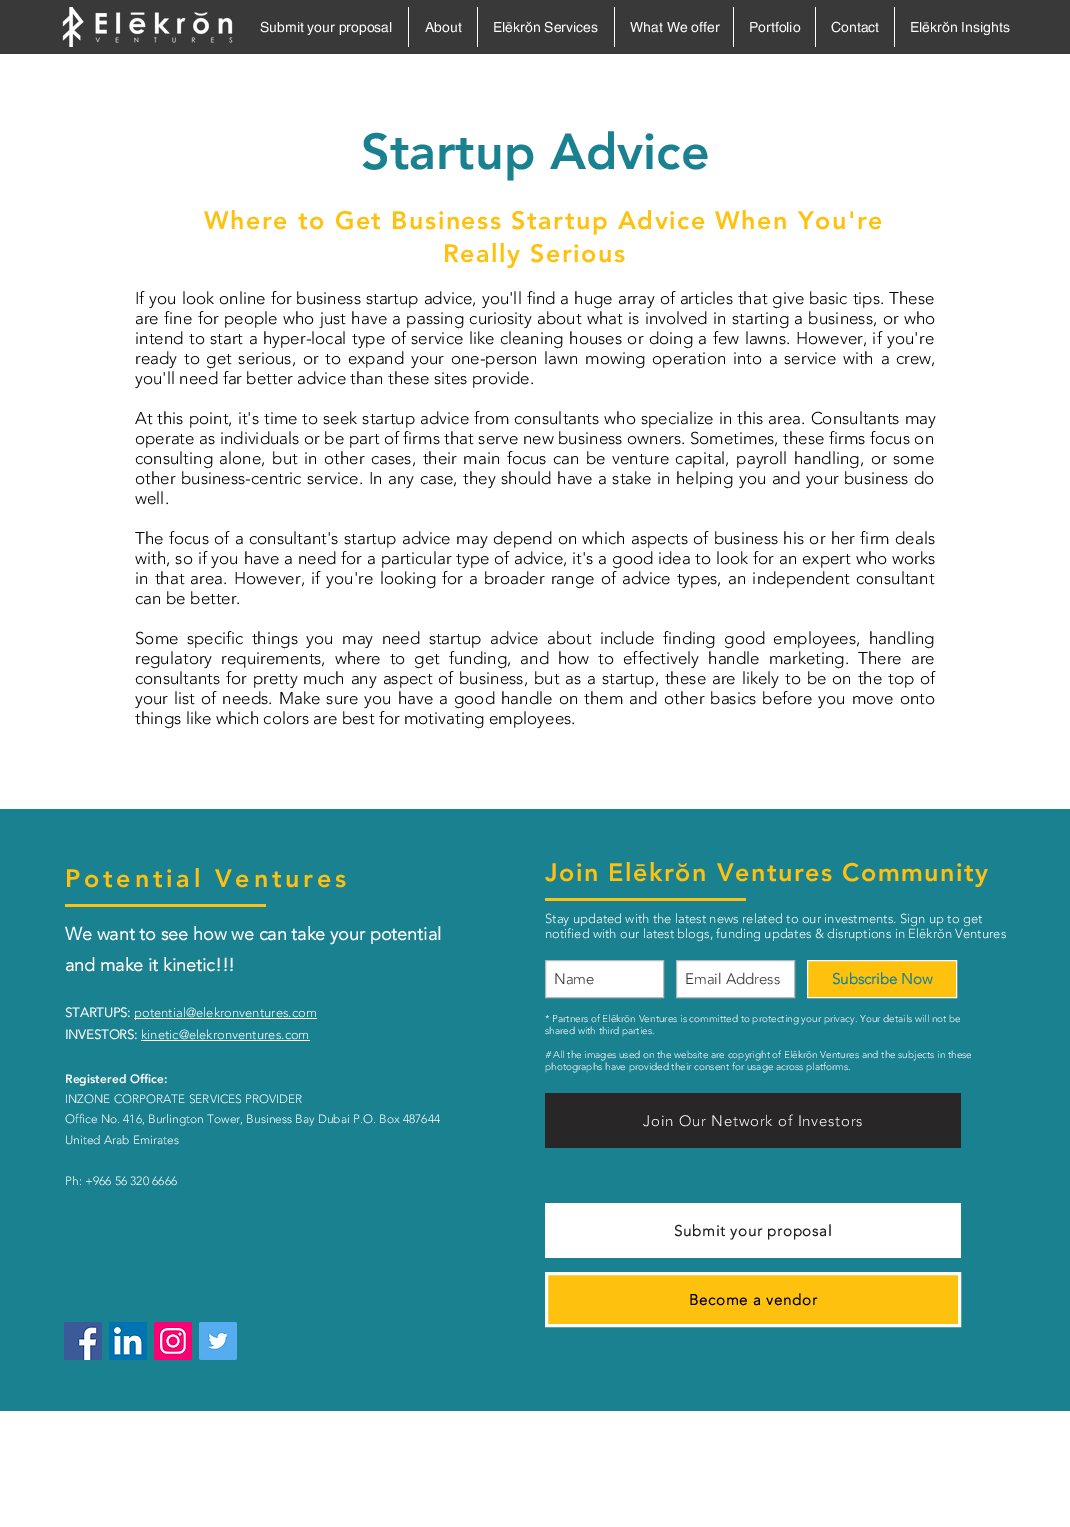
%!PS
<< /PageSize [1070 1527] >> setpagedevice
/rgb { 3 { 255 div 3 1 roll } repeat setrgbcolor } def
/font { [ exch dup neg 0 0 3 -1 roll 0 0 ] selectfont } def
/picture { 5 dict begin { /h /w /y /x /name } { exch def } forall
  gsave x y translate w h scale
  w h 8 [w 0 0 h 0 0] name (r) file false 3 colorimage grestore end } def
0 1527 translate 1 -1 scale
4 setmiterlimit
255 255 255 rgb
0 0 1070 1527 rectfill
57 57 57 rgb
0 0 1070 54 rectfill
(img/1.rgb) 62 7 22 40 picture
(img/2.rgb) 95 12 138 31 picture
[
  [408 7 1 40 255 255 255]
  [477 7 1 40 255 255 255]
  [614 7 1 40 255 255 255]
  [733 7 1 40 255 255 255]
  [815 7 1 40 255 255 255]
  [894 7 1 40 255 255 255]
  [0 809 1070 602 26 129 145]
  [545 898 201 3 254 193 14]
  [65 904 201 3 254 193 14]
  [134 1018 183 1 255 255 255]
  [141 1040 169 1 255 255 255]
] { aload pop rgb rectfill } forall
545.5 960.5 moveto 663.5 960.5 lineto 663.5 997.5 lineto 545.5 997.5 lineto closepath gsave fill grestore
186 184 184 rgb
stroke
255 255 255 rgb
676.5 960.5 moveto 794.5 960.5 lineto 794.5 997.5 lineto 676.5 997.5 lineto closepath gsave fill grestore
186 184 184 rgb
stroke
254 193 14 rgb
807.5 960.5 moveto 956.5 960.5 lineto 956.5 997.5 lineto 807.5 997.5 lineto closepath gsave fill grestore
255 255 255 rgb
stroke
40 38 38 rgb
545 1093 416 55 rectfill
255 255 255 rgb
545 1203 416 55 rectfill
254 193 14 rgb
546.5 1273.5 moveto 959.5 1273.5 lineto 959.5 1325.5 lineto 546.5 1325.5 lineto closepath gsave fill grestore
255 255 255 rgb
3 setlinewidth
stroke
(img/3.rgb) 64 1322 38 38 picture
(img/4.rgb) 109 1322 38 38 picture
(img/5.rgb) 154 1322 38 38 picture
(img/6.rgb) 199 1322 38 38 picture
/helvetica-Regular 14 font
[
  [(Submit your proposal) 260 32]
  [(About) 425 32]
  [(Elēkrŏn Services) 493 32]
  [(What We offer) 630 32]
  [(Portfolio) 749 32]
  [(Contact) 831 32]
  [(Elēkrŏn Insights) 910 32]
] { aload pop moveto show } forall
/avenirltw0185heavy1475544-Black 50 font
26 129 145 rgb
361 169 moveto (Startup Advice) show
/avenirltw0185heavy1475544-Black 25 font
254 193 14 rgb
204 229 moveto 1.5 0 (Where to Get Business Startup Advice When You're) ashow
443 262 moveto 1.5 0 (Really Serious) ashow
/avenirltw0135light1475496-Light 17 font
0 0 0 rgb
135 304 moveto 0.5 0 32 (If you look online for business startup advice, you'll find a huge array of articles that give basic tips. These) widthshow
135 324 moveto 0.9 0 32 (are fine for people who just have a passing curiosity about what is involved in starting a business, or who) widthshow
135 344 moveto 1 0 32 (intend to start a hyper-local type of service like cleaning houses or doing a few lawns. However, if you're) widthshow
135 364 moveto 2.25 0 32 (ready to get serious, or to expand your one-person lawn mowing operation into a service with a crew,) widthshow
135 384 moveto (you'll need far better advice than these sites provide.) show
135 424 moveto 0.5 0 32 (At this point, it's time to seek startup advice from consultants who specialize in this area. Consultants may) widthshow
135 444 moveto 0.1 0 32 (operate as individuals or be part of firms that serve new business owners. Sometimes, these firms focus on) widthshow
135 464 moveto 2 0 32 (consulting alone, but in other cases, their main focus can be venture capital, payroll handling, or some) widthshow
135 484 moveto 1 0 32 (other business-centric service. In any case, they should have a stake in helping you and your business do) widthshow
135 504 moveto (well.) show
135 544 moveto 0.9 0 32 (The focus of a consultant's startup advice may depend on which aspects of business his or her firm deals) widthshow
135 564 moveto 0.4 0 32 (with, so if you have a need for a particular type of advice, it's a good idea to look for an expert who works) widthshow
135 584 moveto 1.75 0 32 (in that area. However, if you're looking for a broader range of advice types, an independent consultant) widthshow
135 604 moveto (can be better.) show
135 644 moveto 3.9 0 32 (Some specific things you may need startup advice about include finding good employees, handling) widthshow
135 664 moveto 4.5 0 32 (regulatory requirements, where to get funding, and how to effectively handle marketing. There are) widthshow
135 684 moveto 1.4 0 32 (consultants for pretty much any aspect of business, but as a startup, these are likely to be on the top of) widthshow
135 704 moveto 1.6 0 32 (your list of needs. Make sure you have a good handle on them and other basics before you move onto) widthshow
135 724 moveto (things like which colors are best for motivating employees.) show
/avenirltw0185heavy1475544-Black 25 font
254 193 14 rgb
65 887 moveto 3.75 0 (Potential Ventures) ashow
545 881 moveto 1.5 0 (Join Elēkrŏn Ventures Community) ashow
/avenirltw0135light1475496-Bold 18 font
255 255 255 rgb
65 940 moveto (We want to see how we can take your potential) show
65 971 moveto (and make it kinetic!!!) show
/avenirltw0135light1475496-Bold 13 font
65 1017 moveto (STARTUPS:) show
/avenirltw0135light1475496-Light 13 font
134 1017 moveto (potential@elekronventures.com) show
/avenirltw0135light1475496-Bold 13 font
65 1039 moveto (INVESTORS:) show
/avenirltw0135light1475496-Light 13 font
141 1039 moveto (kinetic@elekronventures.com) show
/avenirltw0185heavy1475544-Black 12 font
65 1083 moveto (Registered Office:) show
/avenirltw0135light1475496-Light 12 font
[
  [(INZONE CORPORATE SERVICES PROVIDER) 65 1103]
  [(Office No. 416, Burlington Tower, Business Bay Dubai P.O. Box 487644) 65 1123]
  [(United Arab Emirates) 65 1144]
  [(Ph: +966 56 320 6666) 65 1185]
] { aload pop moveto show } forall
/avenirltw0135light1475496-Light 13 font
545 923 moveto (Stay updated with the latest news related to our investments. Sign up to get) show
545 938 moveto (notified with our latest blogs, funding updates & disruptions in Elēkrŏn Ventures) show
/avenirltw0135light1475496-Light 15 font
51 51 51 rgb
554 984 moveto (Name) show
685 984 moveto (Email Address) show
/avenirltw0135light1475496-Bold 15 font
26 129 145 rgb
832 984 moveto (Subscribe Now) show
/avenirltw0135light1475496-Light 10 font
255 255 255 rgb
545 1022 moveto (* Partners of Elēkrŏn Ventures is committed to protecting your privacy. Your details will not be) show
545 1034 moveto (shared with third parties.) show
/avenirltw0135light1475496-LightItalic 10 font
545 1058 moveto (#) show
/avenirltw0135light1475496-Light 10 font
553 1058 moveto (All the images used on the website are copyright of Elēkrŏn Ventures and the subjects in these) show
545 1070 moveto (photographs have provided their consent for usage across platforms.) show
/avenirltw0135light1475496-Light 15 font
643 1126 moveto 0.75 0 (Join Our Network of Investors) ashow
/avenirltw0135light1475496-Bold 15 font
33 33 33 rgb
674 1236 moveto 0.75 0 (Submit your proposal) ashow
0 0 0 rgb
689 1305 moveto 0.75 0 (Become a vendor) ashow
showpage
